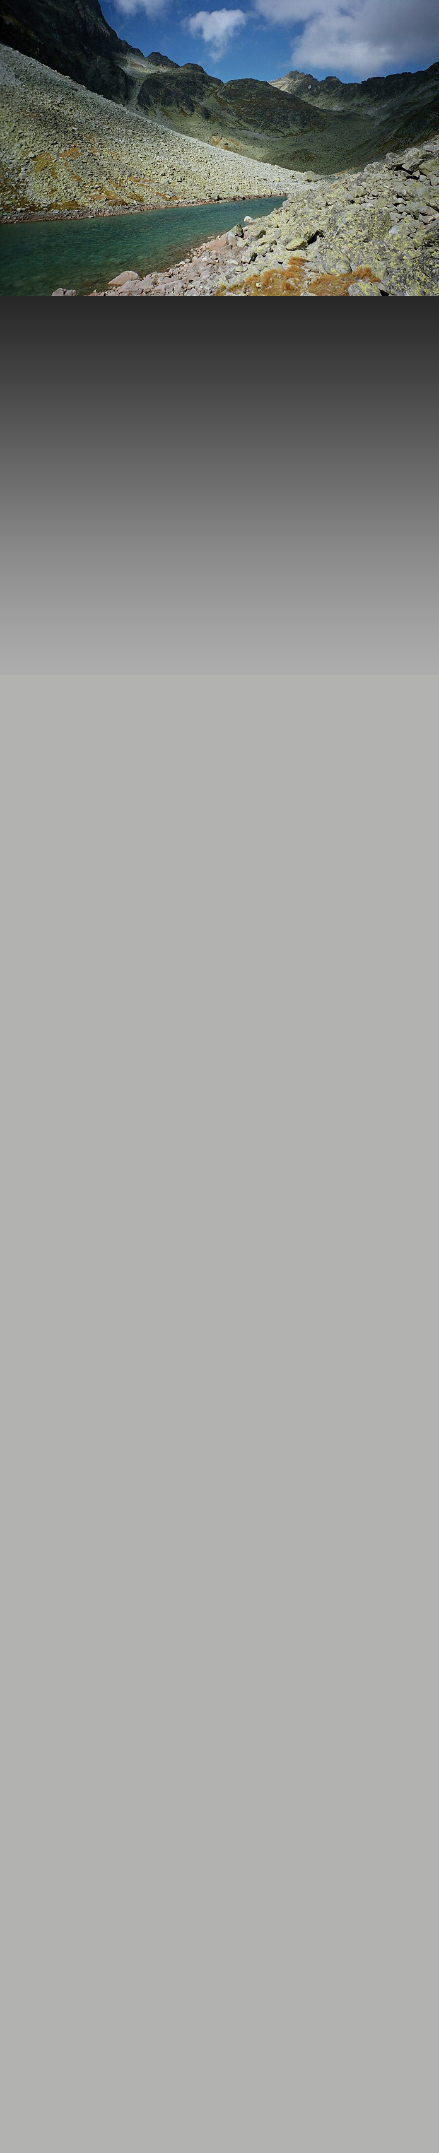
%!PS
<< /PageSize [439 2153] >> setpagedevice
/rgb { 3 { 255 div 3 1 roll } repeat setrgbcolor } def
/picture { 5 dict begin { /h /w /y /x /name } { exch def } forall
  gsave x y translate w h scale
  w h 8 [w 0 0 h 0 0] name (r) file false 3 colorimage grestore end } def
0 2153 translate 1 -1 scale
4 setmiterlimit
178 178 177 rgb
0 0 439 2153 rectfill
(img/1.rgb) 0 296 439 379 picture
(img/2.rgb) 0 0 439 296 picture
showpage
